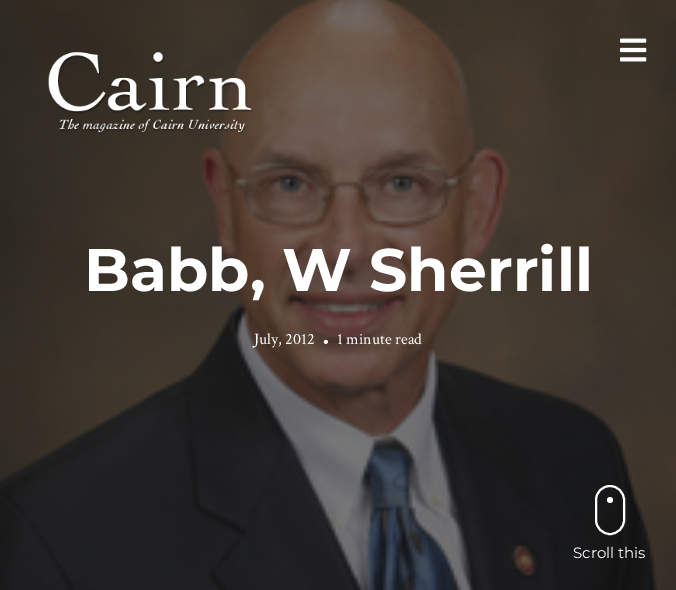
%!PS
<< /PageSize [676 590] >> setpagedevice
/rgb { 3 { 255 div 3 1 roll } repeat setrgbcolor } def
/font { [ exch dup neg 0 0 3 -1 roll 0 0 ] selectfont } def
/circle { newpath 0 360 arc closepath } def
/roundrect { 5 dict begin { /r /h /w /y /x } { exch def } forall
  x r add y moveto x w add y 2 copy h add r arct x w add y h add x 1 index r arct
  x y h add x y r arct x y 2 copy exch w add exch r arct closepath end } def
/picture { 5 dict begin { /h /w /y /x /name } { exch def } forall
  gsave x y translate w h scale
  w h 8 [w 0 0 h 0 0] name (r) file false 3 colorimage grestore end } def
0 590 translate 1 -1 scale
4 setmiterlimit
27 27 27 rgb
0 0 676 590 rectfill
(img/3.rgb) 0 0 676 590 picture
(img/1.rgb) 48 51 205 84 picture
(img/2.rgb) 620 38 27 24 picture
255 255 255 rgb
2 setlinewidth
596 486 28 48 14 roundrect stroke
610 500 3 circle fill
/Montserrat-Bold 60 font
84 291 moveto (Babb, W Sherrill) show
/CrimsonText-Regular 16 font
254 344 moveto (July, 2012) show
/CrimsonText-Regular 20 font
322 347 moveto (•) show
/CrimsonText-Regular 16 font
337 344 moveto (1 minute read) show
/Montserrat-Regular 15 font
573 558 moveto (Scroll this) show
showpage
